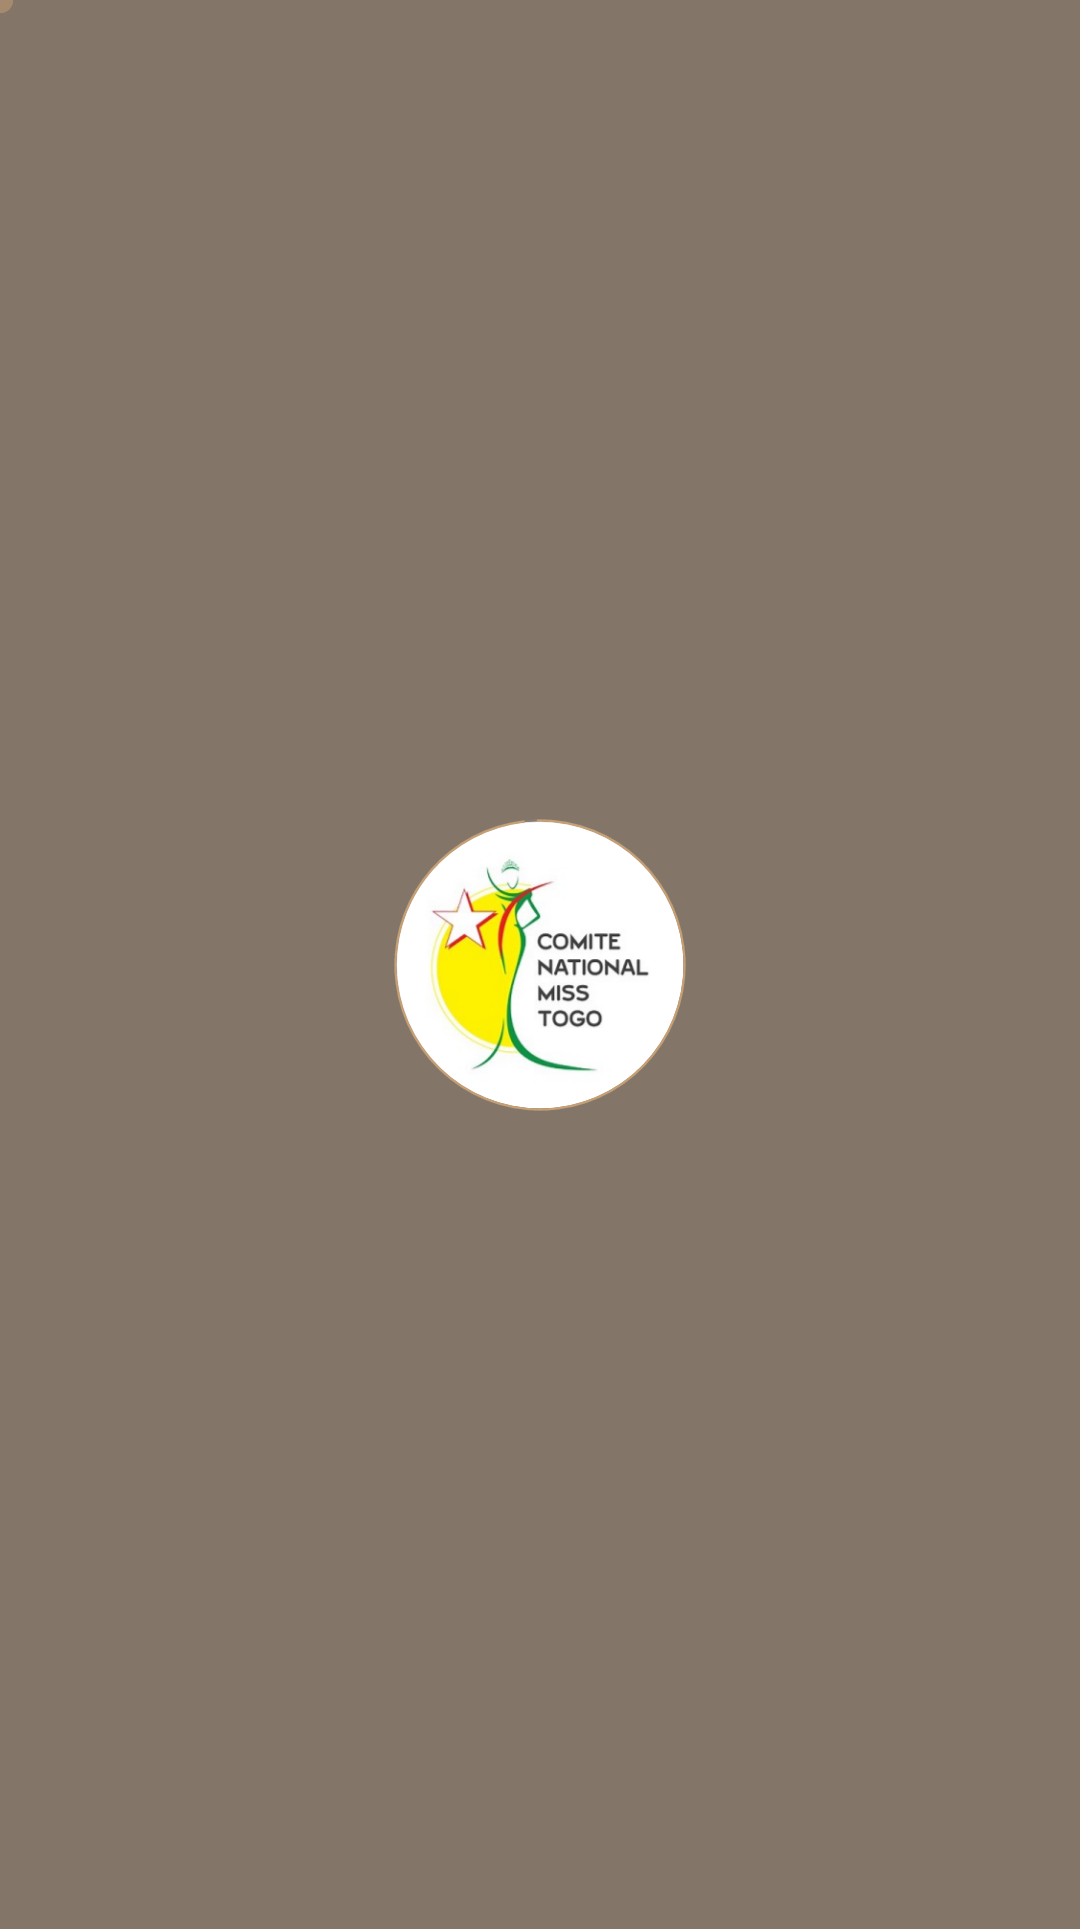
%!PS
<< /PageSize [1080 1929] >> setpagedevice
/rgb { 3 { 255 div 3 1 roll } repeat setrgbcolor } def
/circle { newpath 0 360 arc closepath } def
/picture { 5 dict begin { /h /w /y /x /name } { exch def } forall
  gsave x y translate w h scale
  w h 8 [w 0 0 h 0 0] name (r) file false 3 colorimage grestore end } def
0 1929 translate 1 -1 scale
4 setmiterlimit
131 117 103 rgb
0 0 1080 1929 rectfill
165 138 109 rgb
0.5 0.5 12.5 circle fill
133 123 113 rgb
3 setlinewidth
540 965 144.5 circle stroke
(img/1.rgb) 396 821 288 288 picture
198 159 115 rgb
1.9 setlinewidth
524.5 821.5 moveto 451 829.5 394 892.5 395.5 968 curveto 397.5 1048 463.5 1111 543 1109.5 curveto 623 1107.5 686 1041.5 684.5 962 curveto 682.5 882 616.5 819 537 820.5 curveto stroke
showpage
